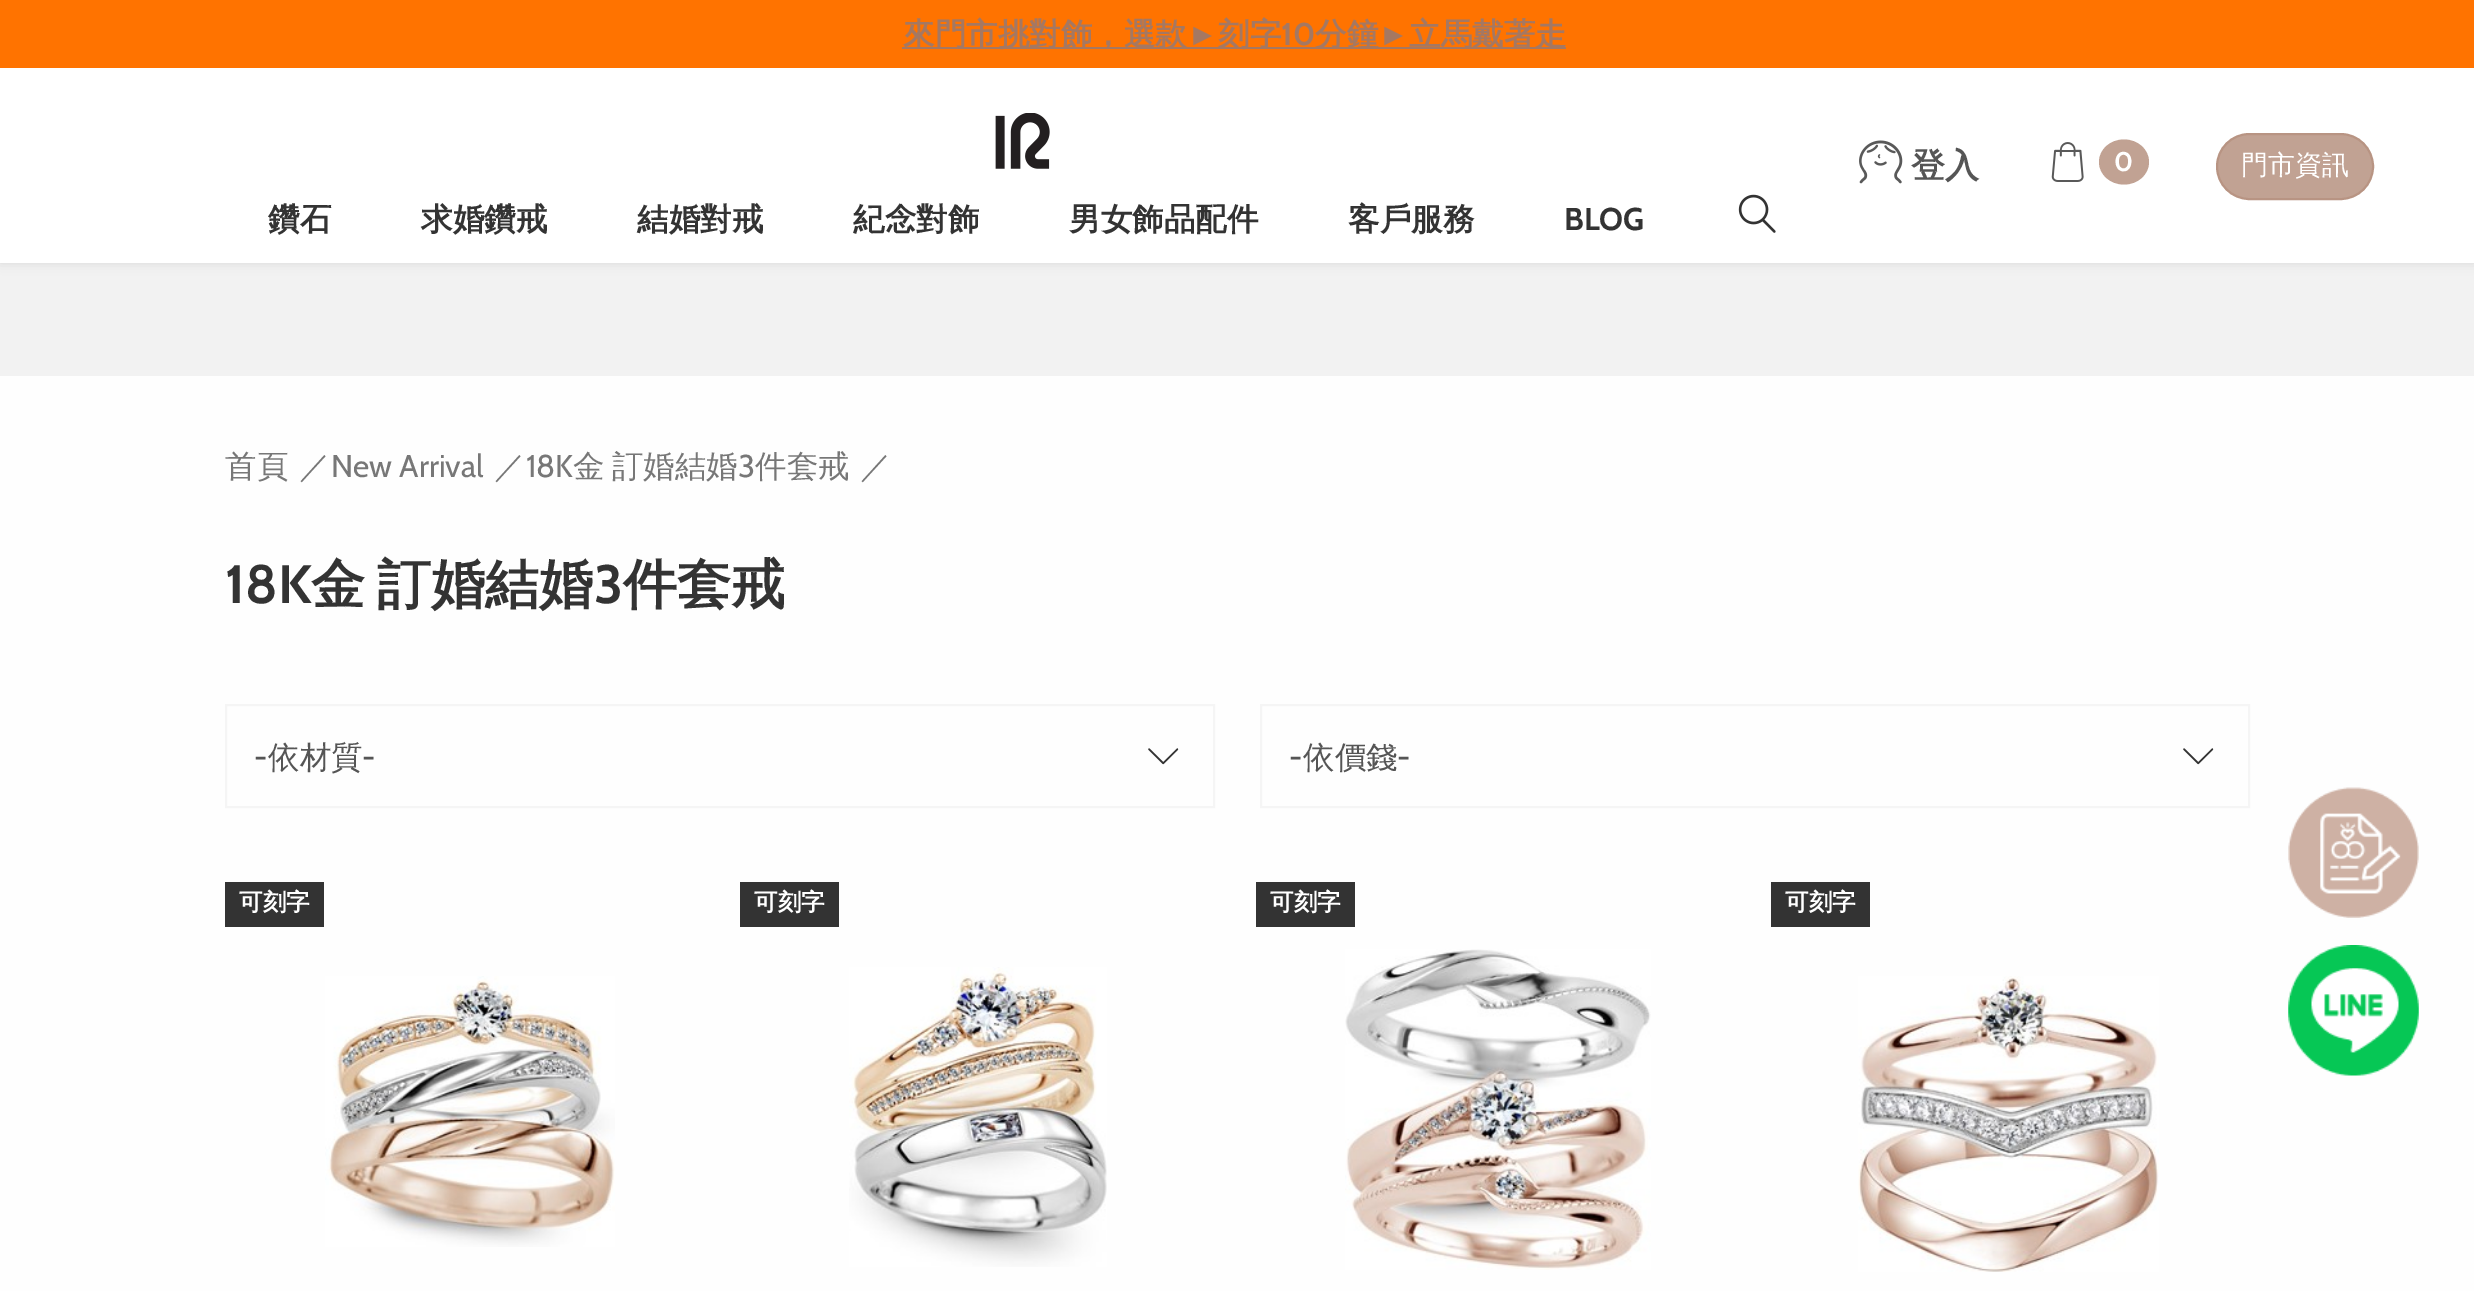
%!PS
<< /PageSize [2474 1291] /PageUsesTransparency true >> setpagedevice
/rgb { 3 { 255 div 3 1 roll } repeat setrgbcolor } def
/font { [ exch dup neg 0 0 3 -1 roll 0 0 ] selectfont } def
/alpha { dup .setfillconstantalpha .setstrokeconstantalpha } def
/roundrect { 5 dict begin { /r /h /w /y /x } { exch def } forall
  x r add y moveto x w add y 2 copy h add r arct x w add y h add x 1 index r arct
  x y h add x y r arct x y 2 copy exch w add exch r arct closepath end } def
/shadow { 12 dict begin { /a /b /q /h /w /y /x } { exch def } forall gsave /was 0 def
  9 -2 -9 { dup b mul 4 div /e exch def 1 sub .425 mul 2.718 exch exp 1 add a .99 .min exch div /now exch def
    1 1 now sub 1 was sub div sub alpha /was now def
    w h .min e 2 mul add 0 gt { x e sub y e sub w e 2 mul add h e 2 mul add
      q e add b .6 mul add w h .min 2 div e add .min 0 .max roundrect fill } if } for grestore end } def
/picture { 5 dict begin { /h /w /y /x /name } { exch def } forall
  gsave x y translate w h scale
  w h 8 [w 0 0 h 0 0] name (r) file false 3 colorimage grestore end } def
0 .pushpdf14devicefilter
0 1291 translate 1 -1 scale
4 setmiterlimit
242 242 242 rgb
0 0 2474 1291 rectfill
0 0 0 rgb
0 0 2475 263 0 5.5 0.1 shadow
[
  [0 68 2474 195 255 255 255]
  [0 0 2474 68 255 115 0]
  [902 47 664 2 165 120 98]
] { aload pop rgb rectfill } forall
(img/1.rgb) 1859 140 44 44 picture
(img/2.rgb) 2051 142 33 40 picture
193 162 147 rgb
2124 139.5 moveto 2138 139.5 2149 149.5 2149 162 curveto 2149 174.5 2138 184.5 2124 184.5 curveto 2110 184.5 2099 174.5 2099 162 curveto 2099 149.5 2110 139.5 2124 139.5 curveto closepath fill
2217 134 156 65 32.5 roundrect gsave fill grestore
184 148 131 rgb
2 setlinewidth
stroke
(img/3.rgb) 995 113 55 56 picture
(img/4.rgb) 1738 194 38 39 picture
254 254 254 rgb
0 376 2474 915 rectfill
245 245 245 rgb
226 705 988 102 rectstroke
(img/5.rgb) 1148 748 31 17 picture
1261 705 988 102 rectstroke
(img/5.rgb) 2183 748 31 17 picture
51 51 51 rgb
225 882 99 45 rectfill
(img/6.rgb) 325 976 290 271 picture
740 882 99 45 rectfill
(img/7.rgb) 849 967 258 300 picture
1256 882 99 45 rectfill
(img/8.rgb) 1345 949 306 321 picture
1771 882 99 45 rectfill
(img/9.rgb) 1858 976 301 296 picture
(img/10.rgb) 2288 787 131 131 picture
(img/11.rgb) 2288 945 131 131 picture
/WenQuanYiZenHei-Bold 31.5 font
165 120 98 rgb
903 45 moveto (來門市挑對飾，選款) show
/LiberationSerif-Bold 31.5 font
1187 45 moveto (►) show
/WenQuanYiZenHei-Bold 31.5 font
1218 45 moveto (刻字) show
/Cabin-Bold 31.5 font
1281 45 moveto (10) show
/WenQuanYiZenHei-Bold 31.5 font
1315 45 moveto (分鐘) show
/LiberationSerif-Bold 31.5 font
1378 45 moveto (►) show
/WenQuanYiZenHei-Bold 31.5 font
1409 45 moveto (立馬戴著走) show
/WenQuanYiZenHei-Bold 34 font
85 85 85 rgb
1911 177 moveto (登入) show
/Cabin-Bold 27 font
255 255 255 rgb
2114 171 moveto (0) show
/WenQuanYiZenHei-Medium 27 font
2241 174 moveto (門市資訊) show
/WenQuanYiZenHei-Bold 31.5 font
51 51 51 rgb
[
  [(鑽石) 268 230]
  [(求婚鑽戒) 421 230]
  [(結婚對戒) 637 230]
  [(紀念對飾) 853 230]
  [(男女飾品配件) 1069 230]
  [(客戶服務) 1348 230]
] { aload pop moveto show } forall
/Cabin-Bold 31.5 font
1564 230 moveto (BLOG) show
/WenQuanYiZenHei-Medium 31.5 font
119 119 119 rgb
225 477 moveto (首頁) show
299 477 moveto (／) show
/Cabin-Regular 31.5 font
331 477 moveto (New Arrival) show
/WenQuanYiZenHei-Medium 31.5 font
494 477 moveto (／) show
/Cabin-Regular 31.5 font
526 477 moveto (18K) show
/WenQuanYiZenHei-Medium 31.5 font
573 477 moveto -2 0 32 (金 訂婚結婚) widthshow
/Cabin-Regular 31.5 font
738 477 moveto (3) show
/WenQuanYiZenHei-Medium 31.5 font
755 477 moveto (件套戒) show
860 477 moveto (／) show
/Cabin-Bold 54 font
51 51 51 rgb
225 603 moveto (18K) show
/WenQuanYiZenHei-Bold 54 font
311 603 moveto -4 0 32 (金 訂婚結婚) widthshow
/Cabin-Bold 54 font
594 603 moveto (3) show
/WenQuanYiZenHei-Bold 54 font
623 603 moveto (件套戒) show
/Cabin-Regular 31.5 font
85 85 85 rgb
254 768 moveto (-) show
/WenQuanYiZenHei-Medium 31.5 font
268 768 moveto (依材質) show
/Cabin-Regular 31.5 font
362 768 moveto (-) show
1289 768 moveto (-) show
/WenQuanYiZenHei-Medium 31.5 font
1303 768 moveto (依價錢) show
/Cabin-Regular 31.5 font
1397 768 moveto (-) show
/WenQuanYiZenHei-Bold 23.5 font
255 255 255 rgb
[
  [(可刻字) 239 910]
  [(可刻字) 754 910]
  [(可刻字) 1270 910]
  [(可刻字) 1785 910]
] { aload pop moveto show } forall
.poppdf14devicefilter showpage
